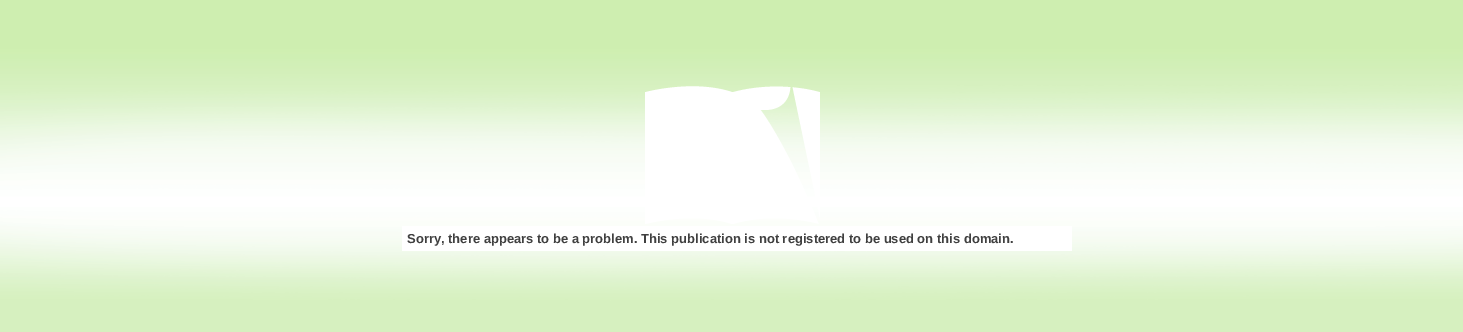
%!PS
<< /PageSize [1463 332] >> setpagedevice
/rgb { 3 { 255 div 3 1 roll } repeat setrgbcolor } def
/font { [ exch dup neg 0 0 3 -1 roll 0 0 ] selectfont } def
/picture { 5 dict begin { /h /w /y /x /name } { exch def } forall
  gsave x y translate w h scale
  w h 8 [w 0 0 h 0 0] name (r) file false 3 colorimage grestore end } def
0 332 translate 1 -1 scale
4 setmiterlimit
255 255 255 rgb
0 0 1463 332 rectfill
(img/1.rgb) 0 0 1463 332 picture
(img/2.rgb) 645 86 175 138 picture
402 226 670 25 rectfill
/LiberationSans-Bold 13 font
64 64 64 rgb
407 243 moveto (Sorry, there appears to be a problem. This publication is not registered to be used on this domain.) show
showpage
